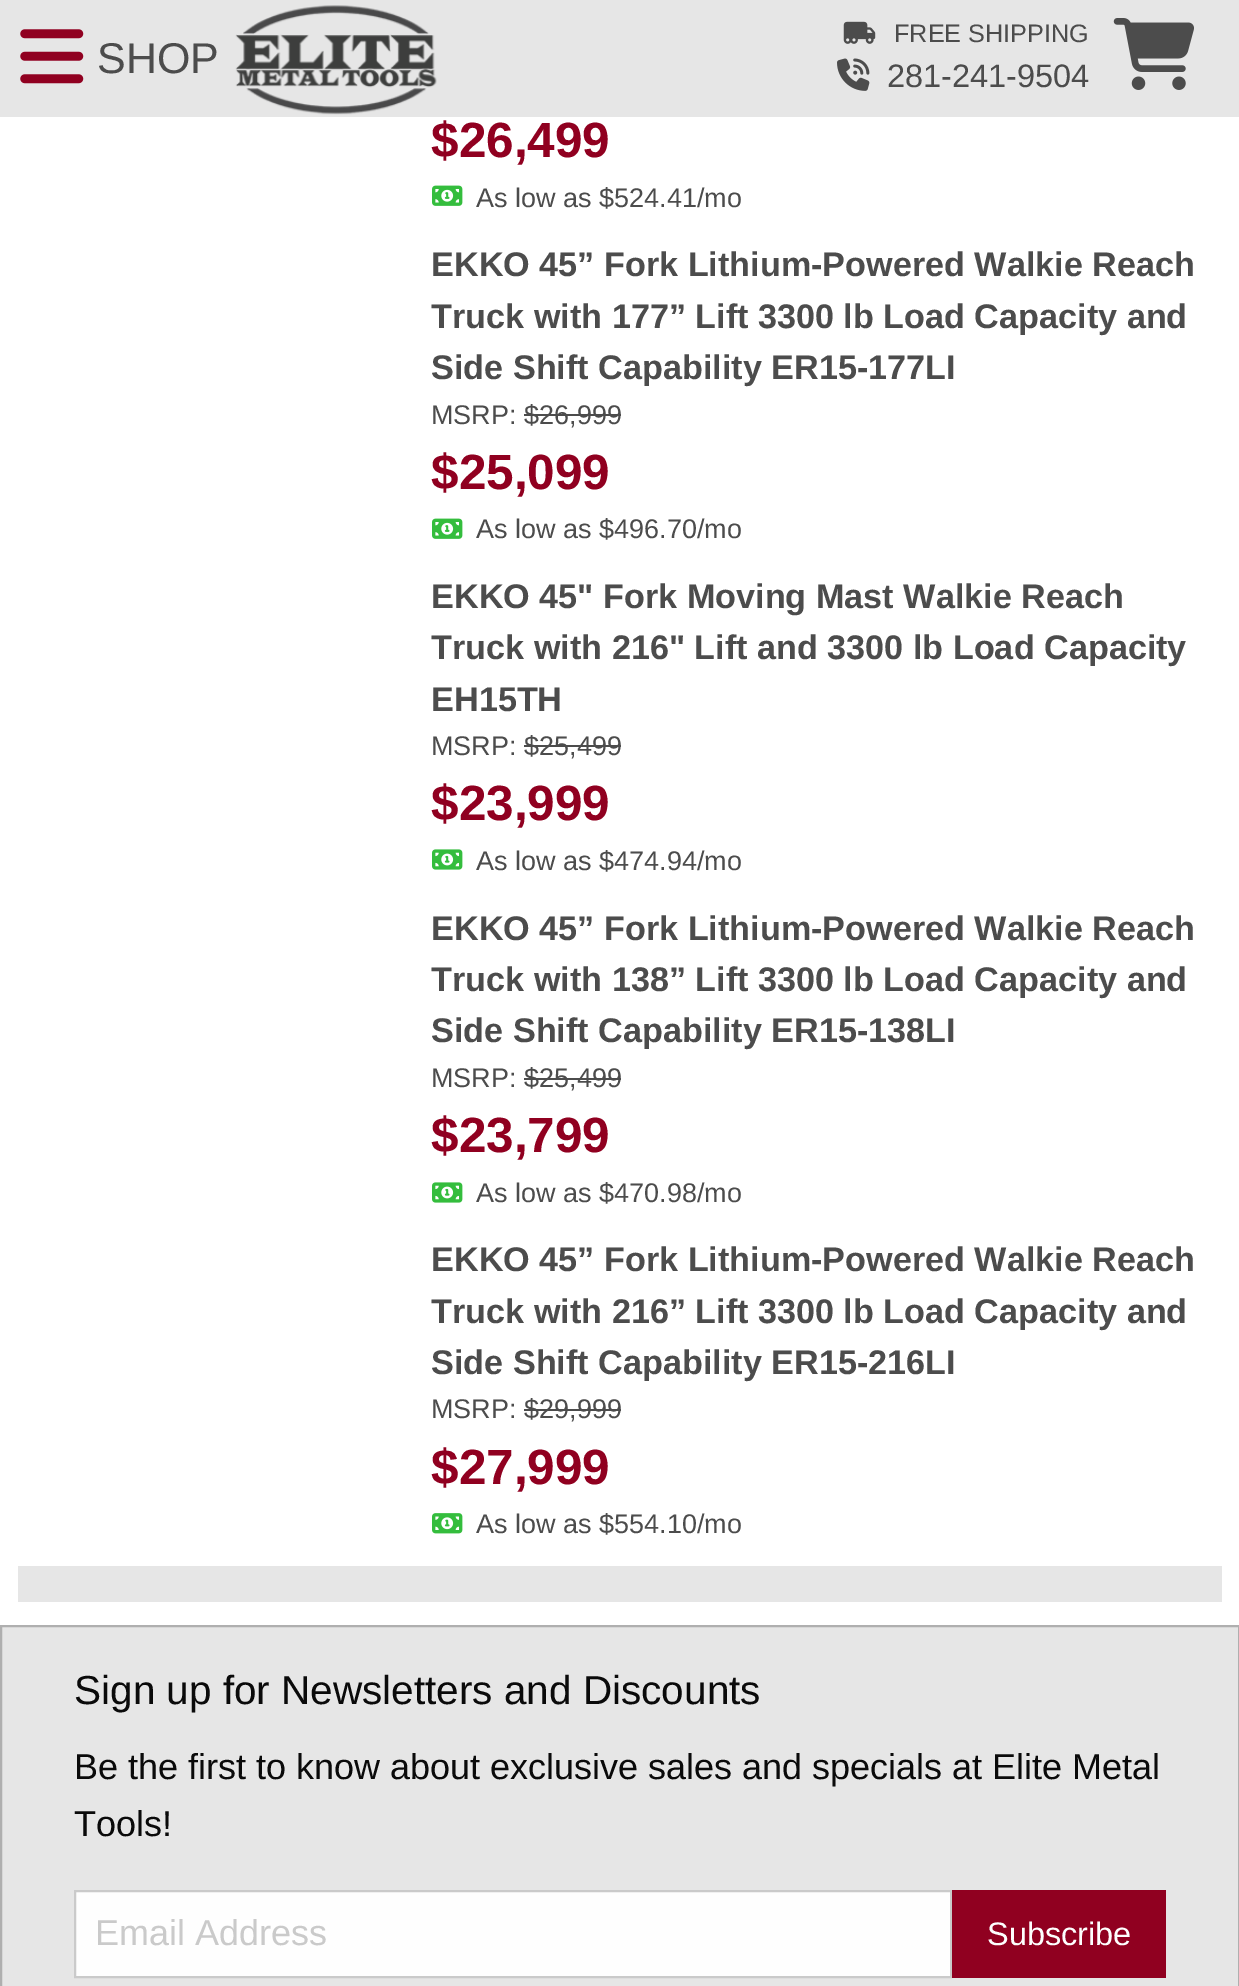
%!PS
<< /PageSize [1239 1986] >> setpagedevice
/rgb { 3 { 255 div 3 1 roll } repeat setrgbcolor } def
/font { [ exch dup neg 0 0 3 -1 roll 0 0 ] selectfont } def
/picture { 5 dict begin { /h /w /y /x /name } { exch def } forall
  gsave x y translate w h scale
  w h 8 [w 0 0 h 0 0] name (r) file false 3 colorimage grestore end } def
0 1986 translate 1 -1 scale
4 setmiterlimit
255 255 255 rgb
0 0 1239 1986 rectfill
230 230 230 rgb
0 0 1239 117 rectfill
(img/1.rgb) 20 29 64 55 picture
(img/2.rgb) 235 5 202 110 picture
(img/3.rgb) 843 21 33 23 picture
(img/4.rgb) 837 58 33 33 picture
(img/5.rgb) 1113 18 81 72 picture
(img/6.rgb) 432 185 31 21 picture
76 76 76 rgb
524 414 97 2 rectfill
(img/6.rgb) 432 518 31 21 picture
524 745 97 2 rectfill
(img/7.rgb) 432 849 31 21 picture
524 1078 97 2 rectfill
(img/7.rgb) 432 1182 31 21 picture
524 1409 97 2 rectfill
(img/8.rgb) 432 1513 31 21 picture
230 230 230 rgb
18 1566 1204 36 rectfill
1 1626 moveto 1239 1626 lineto 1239 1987 lineto 1 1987 lineto closepath gsave fill grestore
175 175 175 rgb
2 setlinewidth
stroke
254 254 254 rgb
75 1891 moveto 951 1891 lineto 951 1977 lineto 75 1977 lineto closepath gsave fill grestore
202 202 202 rgb
stroke
144 0 32 rgb
952 1890 214 88 rectfill
/LiberationSans-Regular 43 font
76 76 76 rgb
97 73 moveto (SHOP) show
/LiberationSans-Regular 25.25 font
894 42 moveto (FREE SHIPPING) show
/LiberationSans-Regular 32.5 font
887 87 moveto (281-241-9504) show
/LiberationSans-Bold 49.5 font
144 0 32 rgb
431 157 moveto ($26,499) show
/LiberationSans-Regular 27 font
76 76 76 rgb
476 207 moveto (As low as $524.41/mo) show
/LiberationSans-Bold 34.2 font
[
  [(EKKO 45” Fork Lithium-Powered Walkie Reach) 431 276]
  [(Truck with 177” Lift 3300 lb Load Capacity and) 431 328]
  [(Side Shift Capability ER15-177LI) 431 379]
] { aload pop moveto show } forall
/LiberationSans-Regular 27 font
431 424 moveto (MSRP: $26,999) show
/LiberationSans-Bold 49.5 font
144 0 32 rgb
431 489 moveto ($25,099) show
/LiberationSans-Regular 27 font
76 76 76 rgb
476 538 moveto (As low as $496.70/mo) show
/LiberationSans-Bold 34.2 font
[
  [(EKKO 45" Fork Moving Mast Walkie Reach) 431 608]
  [(Truck with 216" Lift and 3300 lb Load Capacity) 431 659]
  [(EH15TH) 431 711]
] { aload pop moveto show } forall
/LiberationSans-Regular 27 font
431 755 moveto (MSRP: $25,499) show
/LiberationSans-Bold 49.5 font
144 0 32 rgb
431 820 moveto ($23,999) show
/LiberationSans-Regular 27 font
76 76 76 rgb
476 870 moveto (As low as $474.94/mo) show
/LiberationSans-Bold 34.2 font
[
  [(EKKO 45” Fork Lithium-Powered Walkie Reach) 431 940]
  [(Truck with 138” Lift 3300 lb Load Capacity and) 431 991]
  [(Side Shift Capability ER15-138LI) 431 1042]
] { aload pop moveto show } forall
/LiberationSans-Regular 27 font
431 1087 moveto (MSRP: $25,499) show
/LiberationSans-Bold 49.5 font
144 0 32 rgb
431 1152 moveto ($23,799) show
/LiberationSans-Regular 27 font
76 76 76 rgb
476 1202 moveto (As low as $470.98/mo) show
/LiberationSans-Bold 34.2 font
[
  [(EKKO 45” Fork Lithium-Powered Walkie Reach) 431 1271]
  [(Truck with 216” Lift 3300 lb Load Capacity and) 431 1323]
  [(Side Shift Capability ER15-216LI) 431 1374]
] { aload pop moveto show } forall
/LiberationSans-Regular 27 font
431 1418 moveto (MSRP: $29,999) show
/LiberationSans-Bold 49.5 font
144 0 32 rgb
431 1484 moveto ($27,999) show
/LiberationSans-Regular 27 font
76 76 76 rgb
476 1533 moveto (As low as $554.10/mo) show
/LiberationSans-Regular 40.5 font
10 10 10 rgb
74 1704 moveto (Sign up for Newsletters and Discounts) show
/LiberationSans-Regular 36 font
74 1779 moveto (Be the first to know about exclusive sales and specials at Elite Metal) show
74 1836 moveto (Tools!) show
202 202 202 rgb
95 1945 moveto (Email Address) show
/LiberationSans-Regular 32.5 font
254 254 254 rgb
987 1945 moveto (Subscribe) show
showpage
